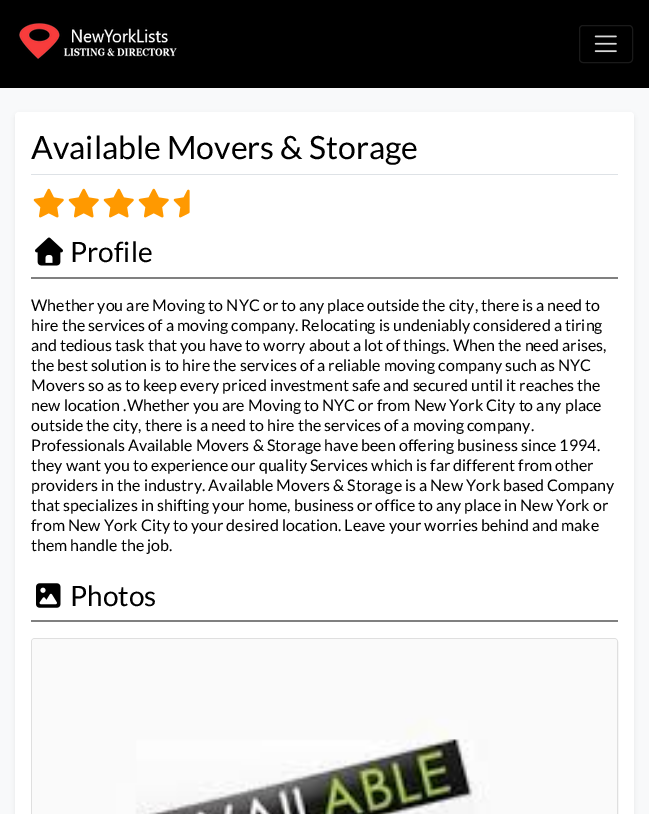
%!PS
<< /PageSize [649 814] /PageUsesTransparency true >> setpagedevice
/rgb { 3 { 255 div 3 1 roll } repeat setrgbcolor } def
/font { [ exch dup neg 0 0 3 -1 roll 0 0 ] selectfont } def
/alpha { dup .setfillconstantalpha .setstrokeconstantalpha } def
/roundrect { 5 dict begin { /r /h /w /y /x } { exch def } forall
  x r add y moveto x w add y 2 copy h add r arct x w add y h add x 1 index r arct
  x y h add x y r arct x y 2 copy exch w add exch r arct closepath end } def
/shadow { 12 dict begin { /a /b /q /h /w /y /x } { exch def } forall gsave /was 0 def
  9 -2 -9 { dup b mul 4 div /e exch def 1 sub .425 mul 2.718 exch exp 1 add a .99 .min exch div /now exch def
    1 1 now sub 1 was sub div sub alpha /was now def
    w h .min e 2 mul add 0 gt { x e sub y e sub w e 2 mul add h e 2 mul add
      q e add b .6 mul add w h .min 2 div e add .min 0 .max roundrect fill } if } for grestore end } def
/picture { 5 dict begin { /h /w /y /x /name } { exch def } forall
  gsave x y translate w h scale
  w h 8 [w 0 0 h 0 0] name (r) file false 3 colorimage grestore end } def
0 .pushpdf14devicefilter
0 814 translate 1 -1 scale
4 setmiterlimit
248 249 250 rgb
0 0 649 814 rectfill
0 0 0 rgb
0 0 649 88 rectfill
(img/1.rgb) 19 23 158 36 picture
26 26 26 rgb
579.5 25.5 53 37 3.5 roundrect stroke
(img/2.rgb) 594 35 23 18 picture
0 0 0 rgb
15 114 619 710 4 2 0.07 shadow
255 255 255 rgb
15 112 619 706 4 roundrect fill
222 226 230 rgb
31 174 587 1 rectfill
(img/3.rgb) 33 188 31 30 picture
(img/3.rgb) 68 188 31 30 picture
(img/3.rgb) 103 188 31 30 picture
(img/3.rgb) 138 188 31 30 picture
(img/4.rgb) 173 189 17 29 picture
(img/5.rgb) 35 237 28 29 picture
128 128 128 rgb
31 277 587 2 rectfill
(img/6.rgb) 36 583 25 25 picture
31 620 587 2 rectfill
223 223 223 rgb
31.5 638.5 586 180 3.5 roundrect stroke
(img/7.rgb) 32 639 585 175 picture
/Lato-Regular 32 font
0 0 0 rgb
31 159 moveto (Available Movers & Storage) show
/Lato-Regular 28 font
70 262 moveto (Profile) show
/Lato-Regular 16 font
[
  [(Whether you are Moving to NYC or to any place outside the city, there is a need to) 31 311]
  [(hire the services of a moving company. Relocating is undeniably considered a tiring) 31 331]
  [(and tedious task that you have to worry about a lot of things. When the need arises,) 31 351]
  [(the best solution is to hire the services of a reliable moving company such as NYC) 31 371]
  [(Movers so as to keep every priced investment safe and secured until it reaches the) 31 391]
  [(new location .Whether you are Moving to NYC or from New York City to any place) 31 411]
  [(outside the city, there is a need to hire the services of a moving company.) 31 431]
  [(Professionals Available Movers & Storage have been offering business since 1994.) 31 451]
  [(they want you to experience our quality Services which is far different from other) 31 471]
  [(providers in the industry. Available Movers & Storage is a New York based Company) 31 491]
  [(that specializes in shifting your home, business or office to any place in New York or) 31 511]
  [(from New York City to your desired location. Leave your worries behind and make) 31 531]
  [(them handle the job.) 31 551]
] { aload pop moveto show } forall
/Lato-Regular 28 font
70 606 moveto (Photos) show
.poppdf14devicefilter showpage
